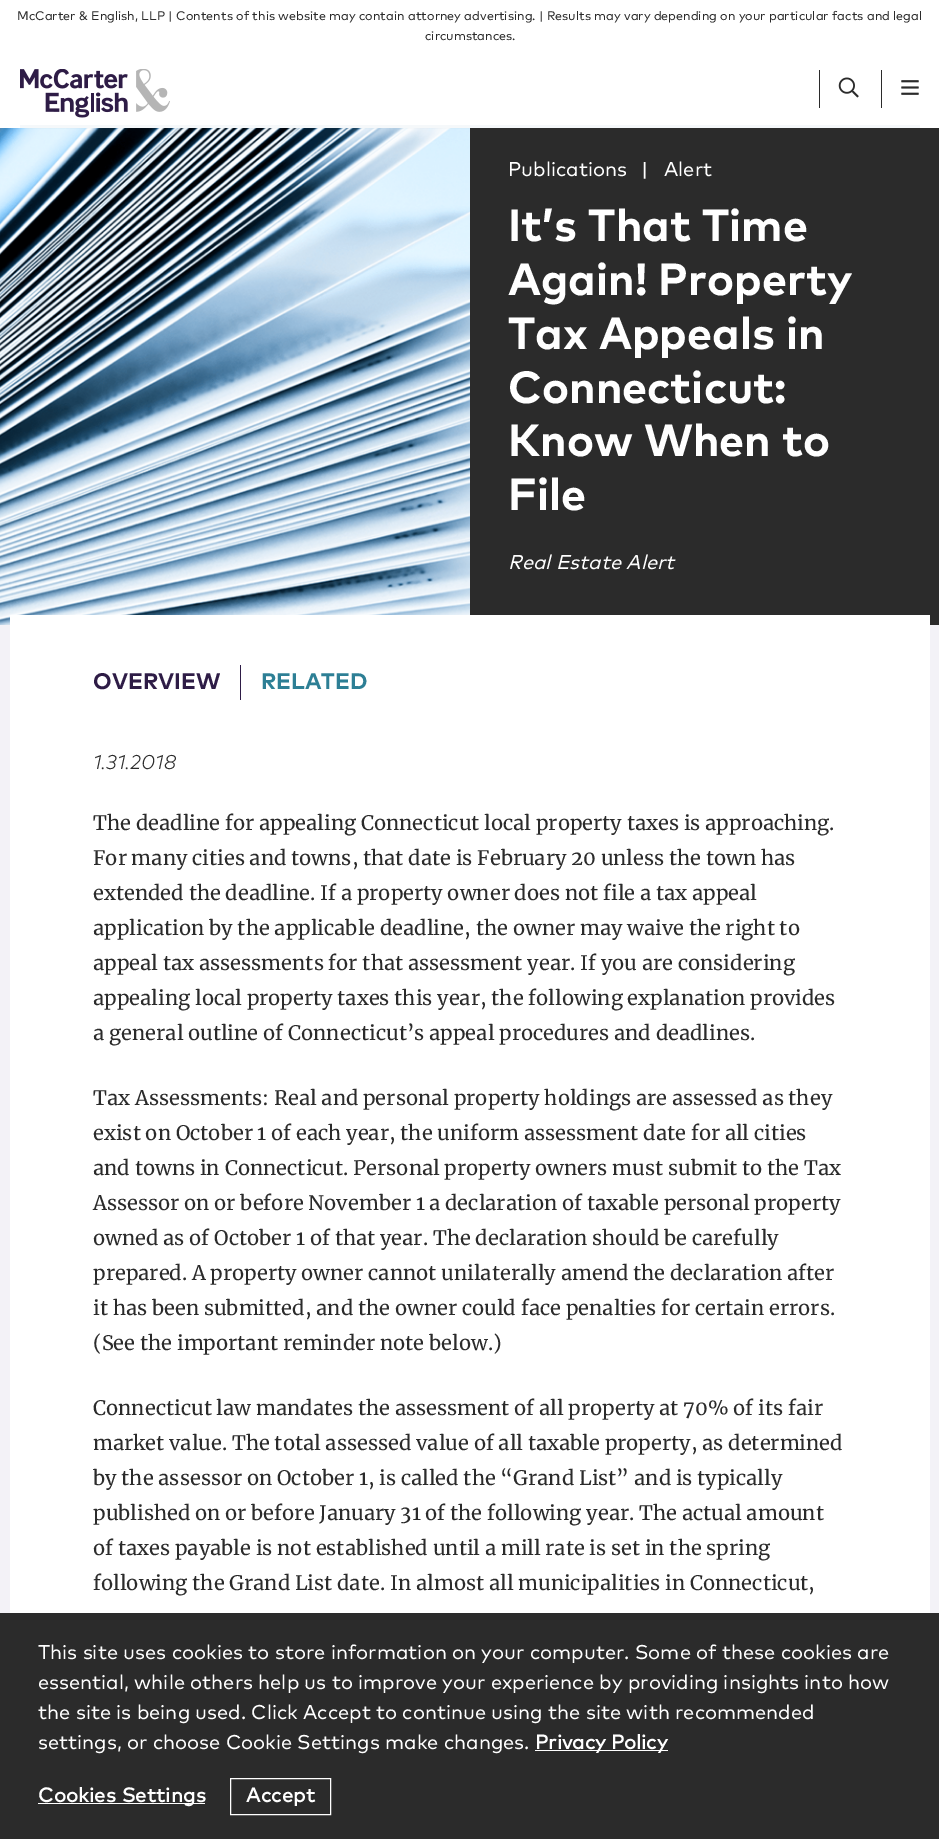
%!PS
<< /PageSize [939 1839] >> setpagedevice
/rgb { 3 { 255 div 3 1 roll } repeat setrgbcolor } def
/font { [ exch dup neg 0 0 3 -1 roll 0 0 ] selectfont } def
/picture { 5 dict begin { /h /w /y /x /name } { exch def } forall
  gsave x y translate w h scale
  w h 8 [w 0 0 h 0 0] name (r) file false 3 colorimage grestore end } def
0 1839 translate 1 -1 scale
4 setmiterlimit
243 242 247 rgb
0 0 939 1839 rectfill
255 255 255 rgb
0 0 939 128 rectfill
(img/1.rgb) 20 69 150 49 picture
43 43 43 rgb
819 70 1 38 rectfill
(img/2.rgb) 838 77 21 21 picture
881 70 1 38 rectfill
(img/3.rgb) 901 80 18 15 picture
245 248 250 rgb
20 125 900 3 rectfill
43 43 43 rgb
8 128 931 497 rectfill
(img/4.rgb) 0 128 470 497 picture
[
  [10 615 920 998 255 255 255]
  [240 665 1 35 46 28 70]
  [0 1613 939 226 43 43 43]
  [535 1750 133 1 255 255 255]
  [38 1803 167 1 255 255 255]
] { aload pop rgb rectfill } forall
230.5 1778.5 100 36 rectstroke
/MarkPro-Regular 12.5 font
43 43 43 rgb
17 20 moveto (McCarter & English, LLP | Contents of this website may contain attorney advertising. | Results may vary depending on your particular facts and legal) show
425 40 moveto (circumstances.) show
/MarkPro-Regular 20 font
255 255 255 rgb
[
  [(Publications) 508 176]
  [(|) 641 176]
  [(Alert) 664 176]
] { aload pop moveto show } forall
/MarkPro-Bold 45 font
[
  [(It’s That Time) 508 241]
  [(Again! Property) 508 295]
  [(Tax Appeals in) 508 349]
  [(Connecticut:) 508 403]
  [(Know When to) 508 456]
  [(File) 508 510]
] { aload pop moveto show } forall
/MarkPro-Italic 20 font
508 569 moveto (Real Estate Alert) show
/MarkPro-Bold 22.5 font
46 28 70 rgb
93 689 moveto (OVERVIEW) show
45 127 149 rgb
261 689 moveto (RELATED) show
/MarkPro-Light 20 font
43 43 43 rgb
93 769 moveto (1.31.2018) show
/Merriweather-Regular 20 font
[
  [(The deadline for appealing Connecticut local property taxes is approaching.) 93 830]
  [(For many cities and towns, that date is February 20 unless the town has) 93 865]
  [(extended the deadline. If a property owner does not file a tax appeal) 93 900]
  [(application by the applicable deadline, the owner may waive the right to) 93 935]
  [(appeal tax assessments for that assessment year. If you are considering) 93 970]
  [(appealing local property taxes this year, the following explanation provides) 93 1005]
  [(a general outline of Connecticut’s appeal procedures and deadlines.) 93 1040]
  [(Tax Assessments: Real and personal property holdings are assessed as they) 93 1105]
  [(exist on October 1 of each year, the uniform assessment date for all cities) 93 1140]
  [(and towns in Connecticut. Personal property owners must submit to the Tax) 93 1175]
  [(Assessor on or before November 1 a declaration of taxable personal property) 93 1210]
  [(owned as of October 1 of that year. The declaration should be carefully) 93 1245]
  [(prepared. A property owner cannot unilaterally amend the declaration after) 93 1280]
  [(it has been submitted, and the owner could face penalties for certain errors.) 93 1315]
  [(\(See the important reminder note below.\)) 93 1350]
  [(Connecticut law mandates the assessment of all property at 70% of its fair) 93 1415]
  [(market value. The total assessed value of all taxable property, as determined) 93 1450]
  [(by the assessor on October 1, is called the “Grand List” and is typically) 93 1485]
  [(published on or before January 31 of the following year. The actual amount) 93 1520]
  [(of taxes payable is not established until a mill rate is set in the spring) 93 1555]
  [(following the Grand List date. In almost all municipalities in Connecticut,) 93 1590]
] { aload pop moveto show } forall
/MarkPro-Regular 20 font
255 255 255 rgb
[
  [(This site uses cookies to store information on your computer. Some of these cookies are) 38 1659]
  [(essential, while others help us to improve your experience by providing insights into how) 38 1689]
  [(the site is being used. Click Accept to continue using the site with recommended) 38 1719]
  [(settings, or choose Cookie Settings make changes.) 38 1749]
] { aload pop moveto show } forall
/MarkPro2-Bold 20 font
535 1749 moveto (Privacy Policy) show
38 1802 moveto 0.25 0 (Cookies Settings) ashow
246 1802 moveto 0.25 0 (Accept) ashow
showpage
